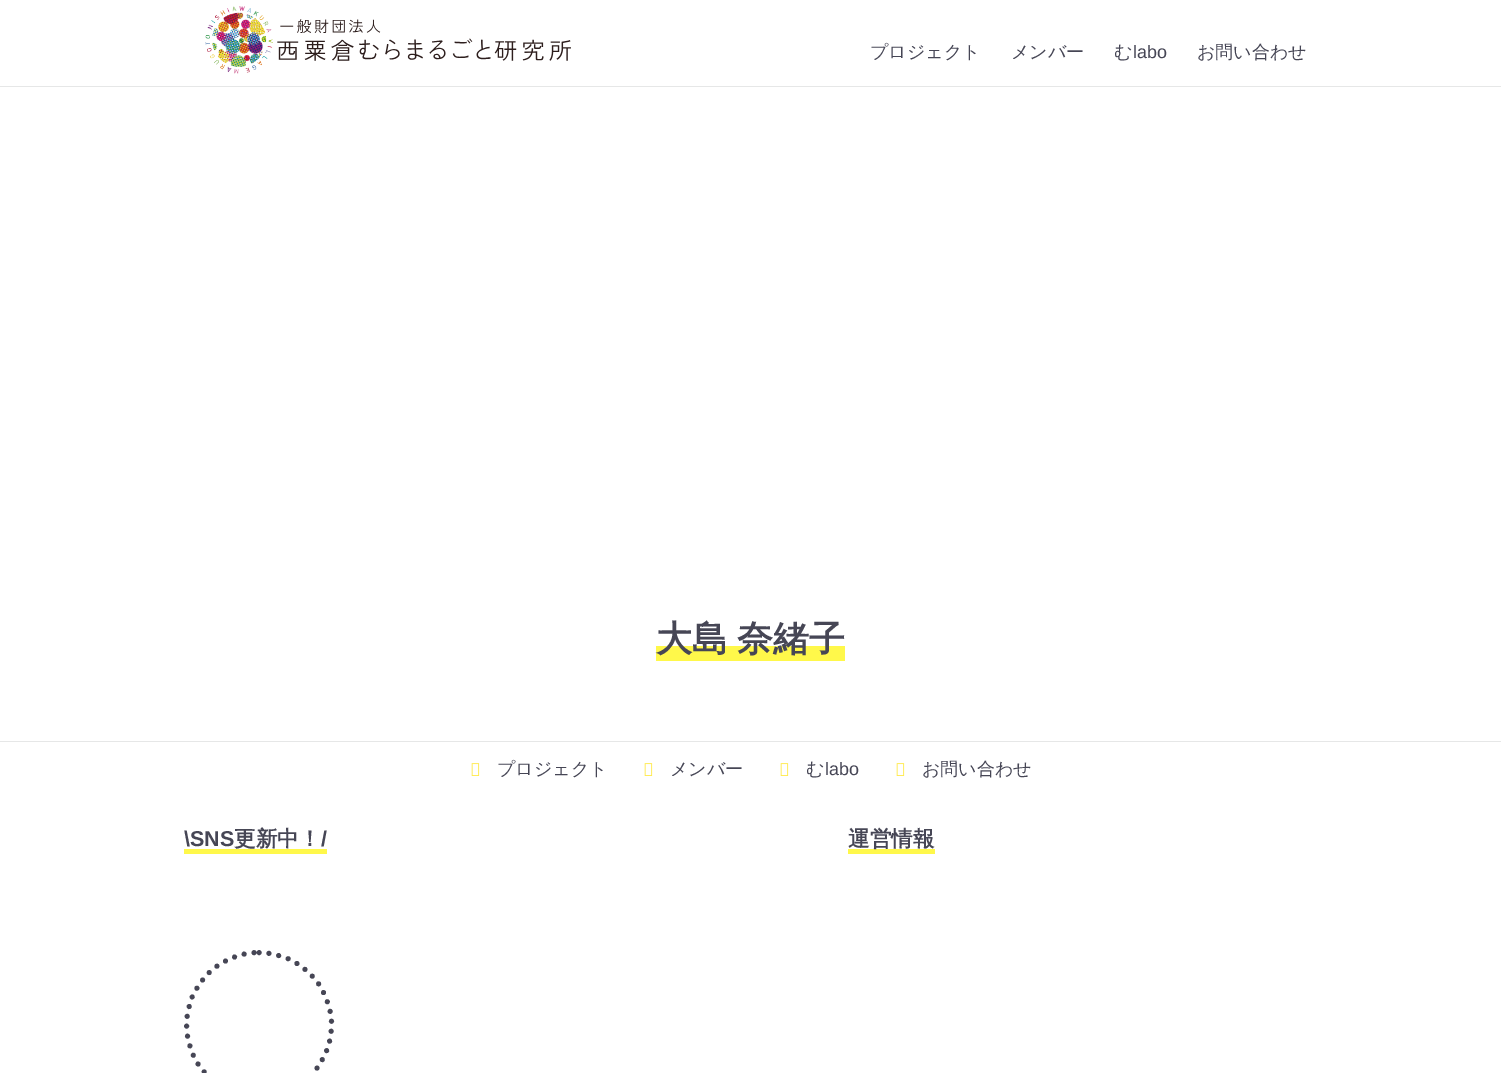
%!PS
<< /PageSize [1501 1073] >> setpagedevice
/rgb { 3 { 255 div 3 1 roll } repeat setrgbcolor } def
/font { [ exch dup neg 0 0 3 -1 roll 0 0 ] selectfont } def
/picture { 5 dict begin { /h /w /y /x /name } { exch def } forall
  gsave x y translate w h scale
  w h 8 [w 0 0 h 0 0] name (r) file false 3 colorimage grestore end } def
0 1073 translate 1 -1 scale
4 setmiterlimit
255 255 255 rgb
0 0 1501 1073 rectfill
230 231 231 rgb
0 86 1501 1 rectfill
(img/1.rgb) 205 6 366 68 picture
255 248 74 rgb
656 646 189 15 rectfill
230 231 231 rgb
0 741 1501 1 rectfill
(img/2.rgb) 471 763 9 13 picture
(img/2.rgb) 644 763 9 13 picture
(img/2.rgb) 780 763 9 13 picture
(img/2.rgb) 896 763 9 13 picture
255 248 74 rgb
184 849 143 5 rectfill
70 70 85 rgb
5 setlinewidth
1 setlinecap
[0 10] 0 setdash
259 952.5 moveto 299 952.5 331.5 985 331.5 1025 curveto 331.5 1065 299 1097.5 259 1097.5 curveto 219 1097.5 186.5 1065 186.5 1025 curveto 186.5 985 219 952.5 259 952.5 curveto closepath stroke
255 248 74 rgb
848 849 87 5 rectfill
/WenQuanYiZenHei-Medium 18 font
70 70 85 rgb
[
  [(プロジェクト) 870 58]
  [(メンバー) 1011 58]
  [(む) 1114 58]
] { aload pop moveto show } forall
/LiberationSans-Regular 18 font
1133 58 moveto (labo) show
/WenQuanYiZenHei-Medium 18 font
1197 58 moveto (お問い合わせ) show
/WenQuanYiZenHei-Bold 36 font
656 651 moveto -2 0 32 (大島 奈緒子) widthshow
/WenQuanYiZenHei-Medium 18 font
[
  [(プロジェクト) 497 775]
  [(メンバー) 670 775]
  [(む) 806 775]
] { aload pop moveto show } forall
/LiberationSans-Regular 18 font
825 775 moveto (labo) show
/WenQuanYiZenHei-Medium 18 font
922 775 moveto (お問い合わせ) show
/LiberationSans-Bold 21.5 font
184 846 moveto (\\SNS) show
/WenQuanYiZenHei-Bold 21.5 font
234 846 moveto (更新中！) show
/LiberationSans-Bold 21.5 font
321 846 moveto (/) show
/WenQuanYiZenHei-Bold 21.5 font
848 846 moveto (運営情報) show
showpage
